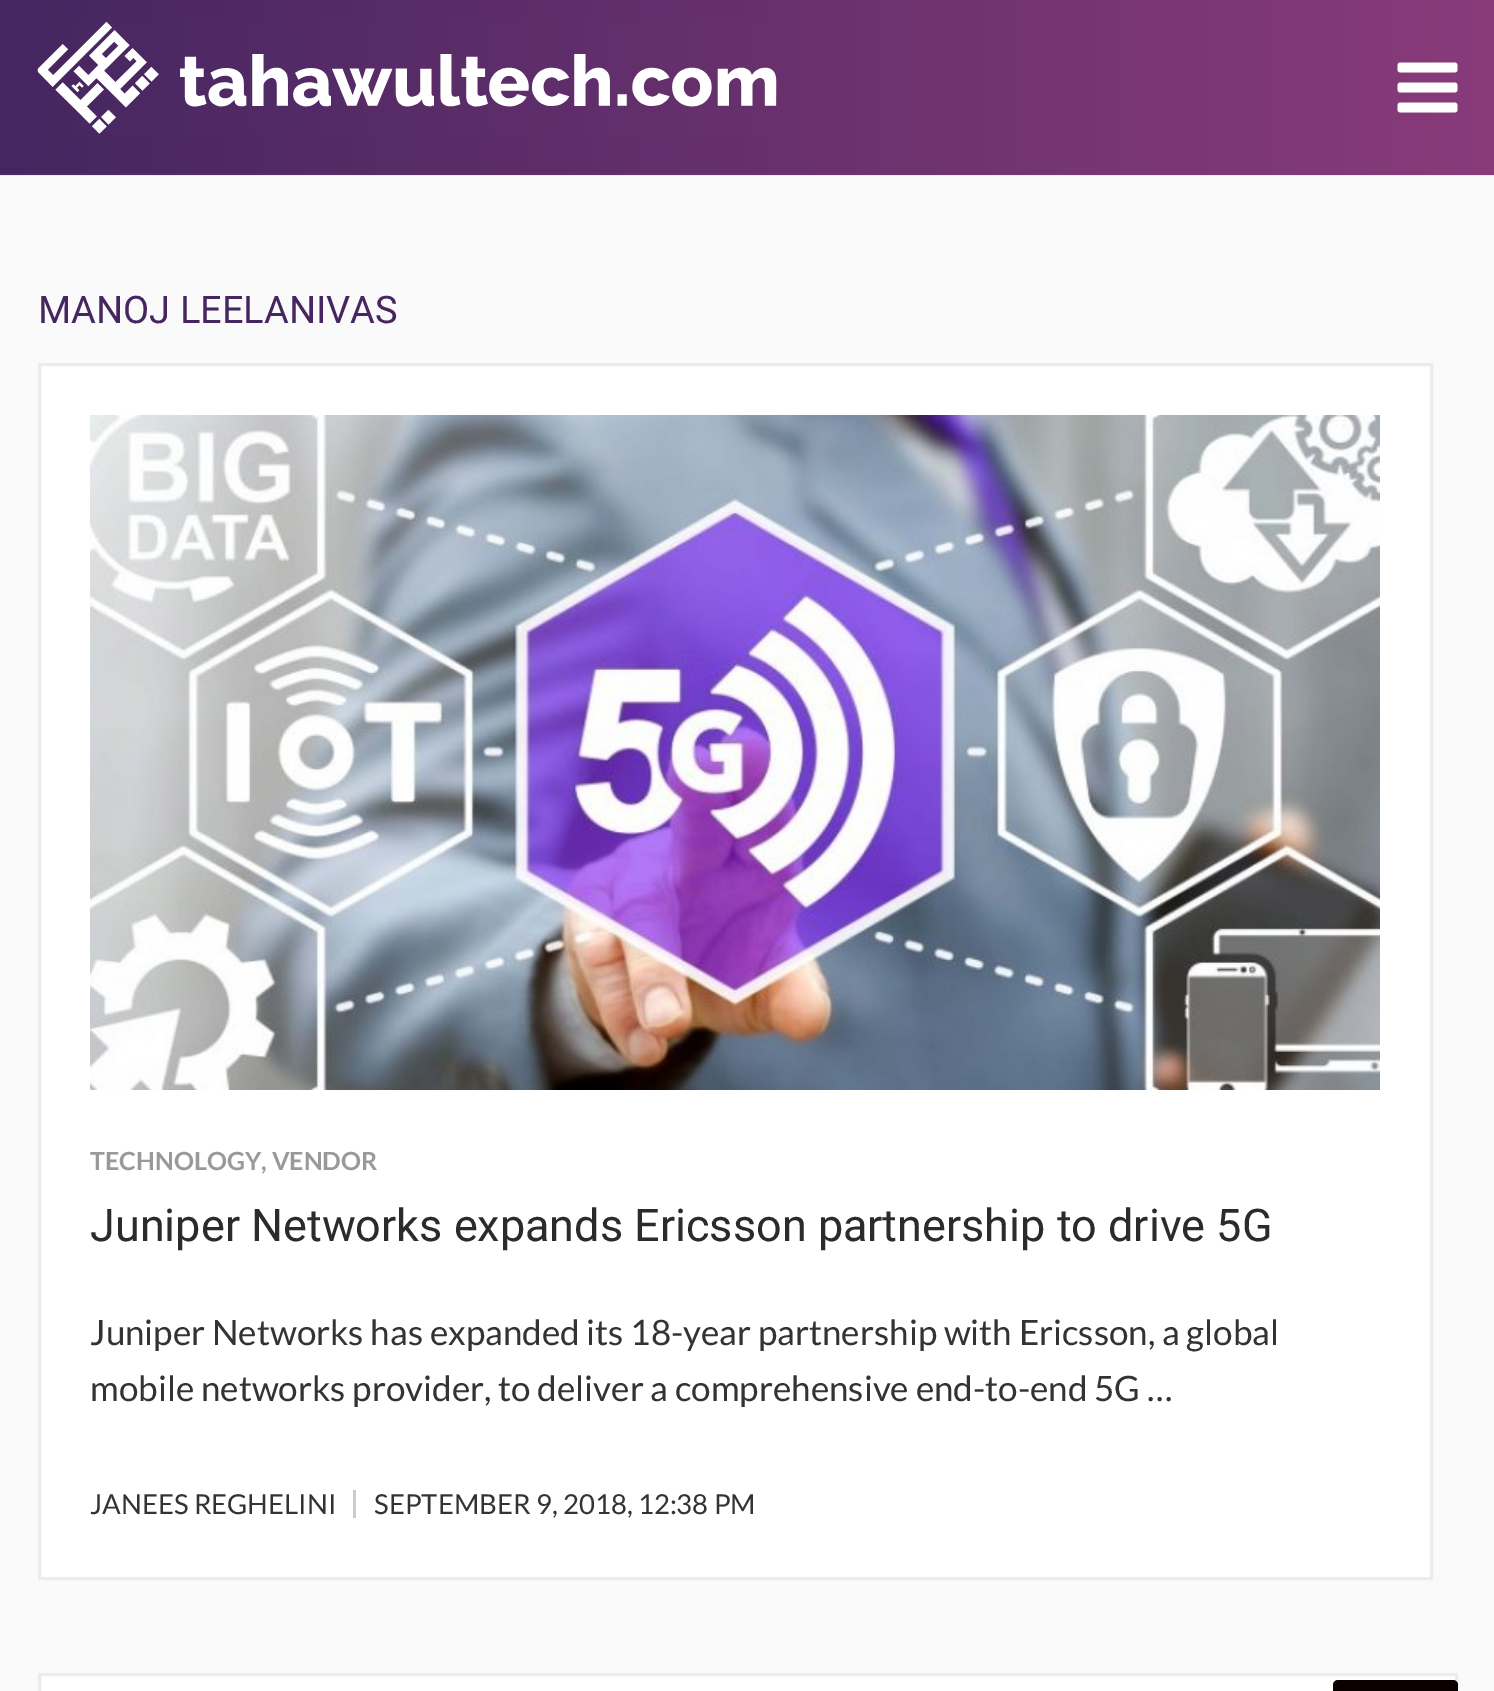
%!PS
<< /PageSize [1494 1691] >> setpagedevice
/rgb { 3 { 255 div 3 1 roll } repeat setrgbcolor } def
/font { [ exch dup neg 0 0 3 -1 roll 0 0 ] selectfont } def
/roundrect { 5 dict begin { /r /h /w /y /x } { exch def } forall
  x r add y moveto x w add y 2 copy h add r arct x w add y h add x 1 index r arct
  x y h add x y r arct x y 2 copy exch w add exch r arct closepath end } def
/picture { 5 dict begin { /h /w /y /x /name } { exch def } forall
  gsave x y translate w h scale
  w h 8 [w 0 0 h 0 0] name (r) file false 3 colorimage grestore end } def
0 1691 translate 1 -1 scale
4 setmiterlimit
250 250 250 rgb
0 0 1494 1691 rectfill
235 235 235 rgb
0 175 1494 1 rectfill
gsave 0 0 moveto 1494 0 lineto 1494 173 lineto 0 173 lineto closepath clip newpath
<< /ShadingType 2 /ColorSpace /DeviceRGB /Coords [0 86 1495 86] /Extend [true true] /Function << /FunctionType 2 /Domain [0 1] /C0 [0.271 0.149 0.376] /C1 [0.537 0.231 0.478] /N 1 >> >> shfill grestore
gsave 0 173 moveto 1494 173 lineto 1494 175 lineto 0 175 lineto closepath clip newpath
<< /ShadingType 2 /ColorSpace /DeviceRGB /Coords [0 86 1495 86] /Extend [true true] /Function << /FunctionType 2 /Domain [0 1] /C0 [0.282 0.173 0.376] /C1 [0.522 0.247 0.471] /N 1 >> >> shfill grestore
(img/1.rgb) 37 21 740 113 picture
(img/2.rgb) 1397 62 61 51 picture
255 255 255 rgb
39.5 364.5 moveto 1431.5 364.5 lineto 1431.5 1578.5 lineto 39.5 1578.5 lineto closepath gsave fill grestore
236 236 236 rgb
3 setlinewidth
stroke
(img/3.rgb) 90 415 1290 675 picture
204 204 204 rgb
353 1490 3 28 rectfill
255 255 255 rgb
39.5 1674.5 moveto 1456.5 1674.5 lineto 1456.5 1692.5 lineto 39.5 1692.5 lineto closepath gsave fill grestore
236 236 236 rgb
stroke
10 0 0 rgb
1333 1680 125 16 5 roundrect fill
/Roboto-Regular 38 font
69 38 96 rgb
38 323 moveto (MANOJ LEELANIVAS) show
/Lato-Bold 25 font
153 153 153 rgb
90 1170 moveto (TECHNOLOGY, VENDOR) show
/Roboto-Regular 45 font
43 43 43 rgb
90 1241 moveto (Juniper Networks expands Ericsson partnership to drive 5G) show
/Lato-Regular 35 font
51 51 51 rgb
90 1345 moveto (Juniper Networks has expanded its 18-year partnership with Ericsson, a global) show
90 1401 moveto (mobile networks provider, to deliver a comprehensive end-to-end 5G …) show
/Lato-Regular 27.5 font
90 1514 moveto (JANEES REGHELINI) show
374 1514 moveto (SEPTEMBER 9, 2018, 12:38 PM) show
showpage
